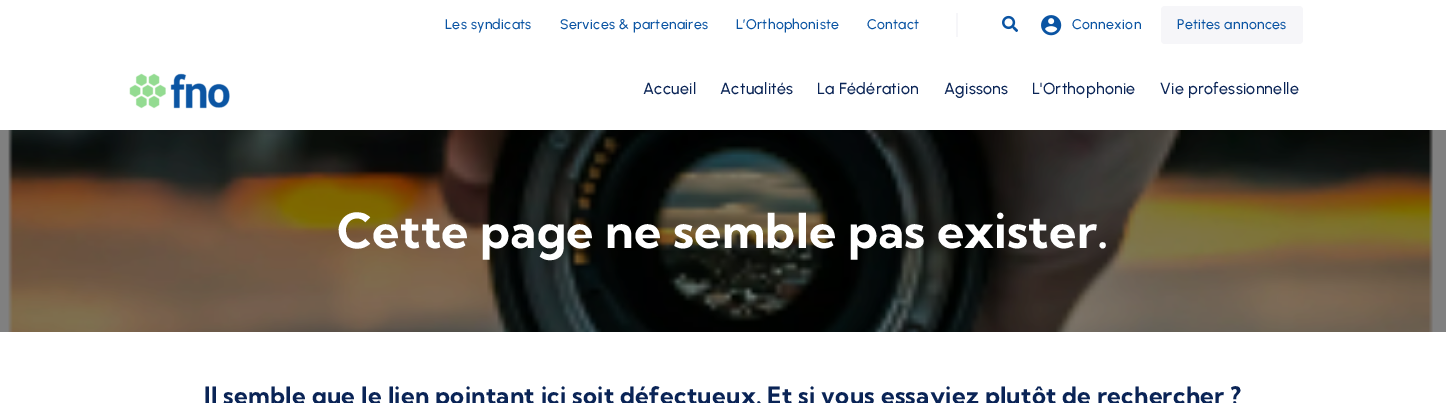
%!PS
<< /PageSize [1446 403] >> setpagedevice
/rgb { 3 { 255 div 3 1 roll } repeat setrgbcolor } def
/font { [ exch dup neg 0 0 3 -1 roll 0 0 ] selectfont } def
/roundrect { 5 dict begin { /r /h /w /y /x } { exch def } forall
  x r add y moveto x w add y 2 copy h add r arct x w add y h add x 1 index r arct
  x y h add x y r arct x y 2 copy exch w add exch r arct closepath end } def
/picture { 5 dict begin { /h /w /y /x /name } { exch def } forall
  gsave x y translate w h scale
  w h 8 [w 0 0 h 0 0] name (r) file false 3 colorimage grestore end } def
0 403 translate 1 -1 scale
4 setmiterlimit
255 255 255 rgb
0 0 1446 403 rectfill
246 246 249 rgb
956 13 2 24 rectfill
(img/1.rgb) 1002 15 16 17 picture
(img/2.rgb) 1041 15 21 21 picture
1161 6 142 38 4 roundrect fill
(img/3.rgb) 129 73 101 36 picture
(img/4.rgb) 0 130 1446 202 picture
/Urbanist-Medium 14 font
10 84 163 rgb
445 29 moveto 0.3 0 (Les syndicats) ashow
560 29 moveto 0.3 0 (Services & partenaires) ashow
736 29 moveto 0.3 0 (L’Orthophoniste) ashow
867 29 moveto 0.3 0 (Contact) ashow
1072 29 moveto 0.3 0 (Connexion) ashow
1177 29 moveto 0.3 0 (Petites annonces) ashow
/Urbanist-Medium 16 font
10 36 86 rgb
643 94 moveto 0.3 0 (Accueil) ashow
720 94 moveto 0.3 0 (Actualités) ashow
817 94 moveto 0.3 0 (La Fédération) ashow
944 94 moveto 0.3 0 (Agissons) ashow
1032 94 moveto 0.3 0 (L'Orthophonie) ashow
1160 94 moveto 0.3 0 (Vie professionnelle) ashow
/KumbhSans-Bold 48 font
255 255 255 rgb
337 248 moveto 0.3 0 (Cette page ne semble pas exister.) ashow
/KumbhSans-Bold 24 font
10 36 86 rgb
204 404 moveto 0.3 0 (Il semble que le lien pointant ici soit défectueux. Et si vous essayiez plutôt de rechercher ?) ashow
showpage
